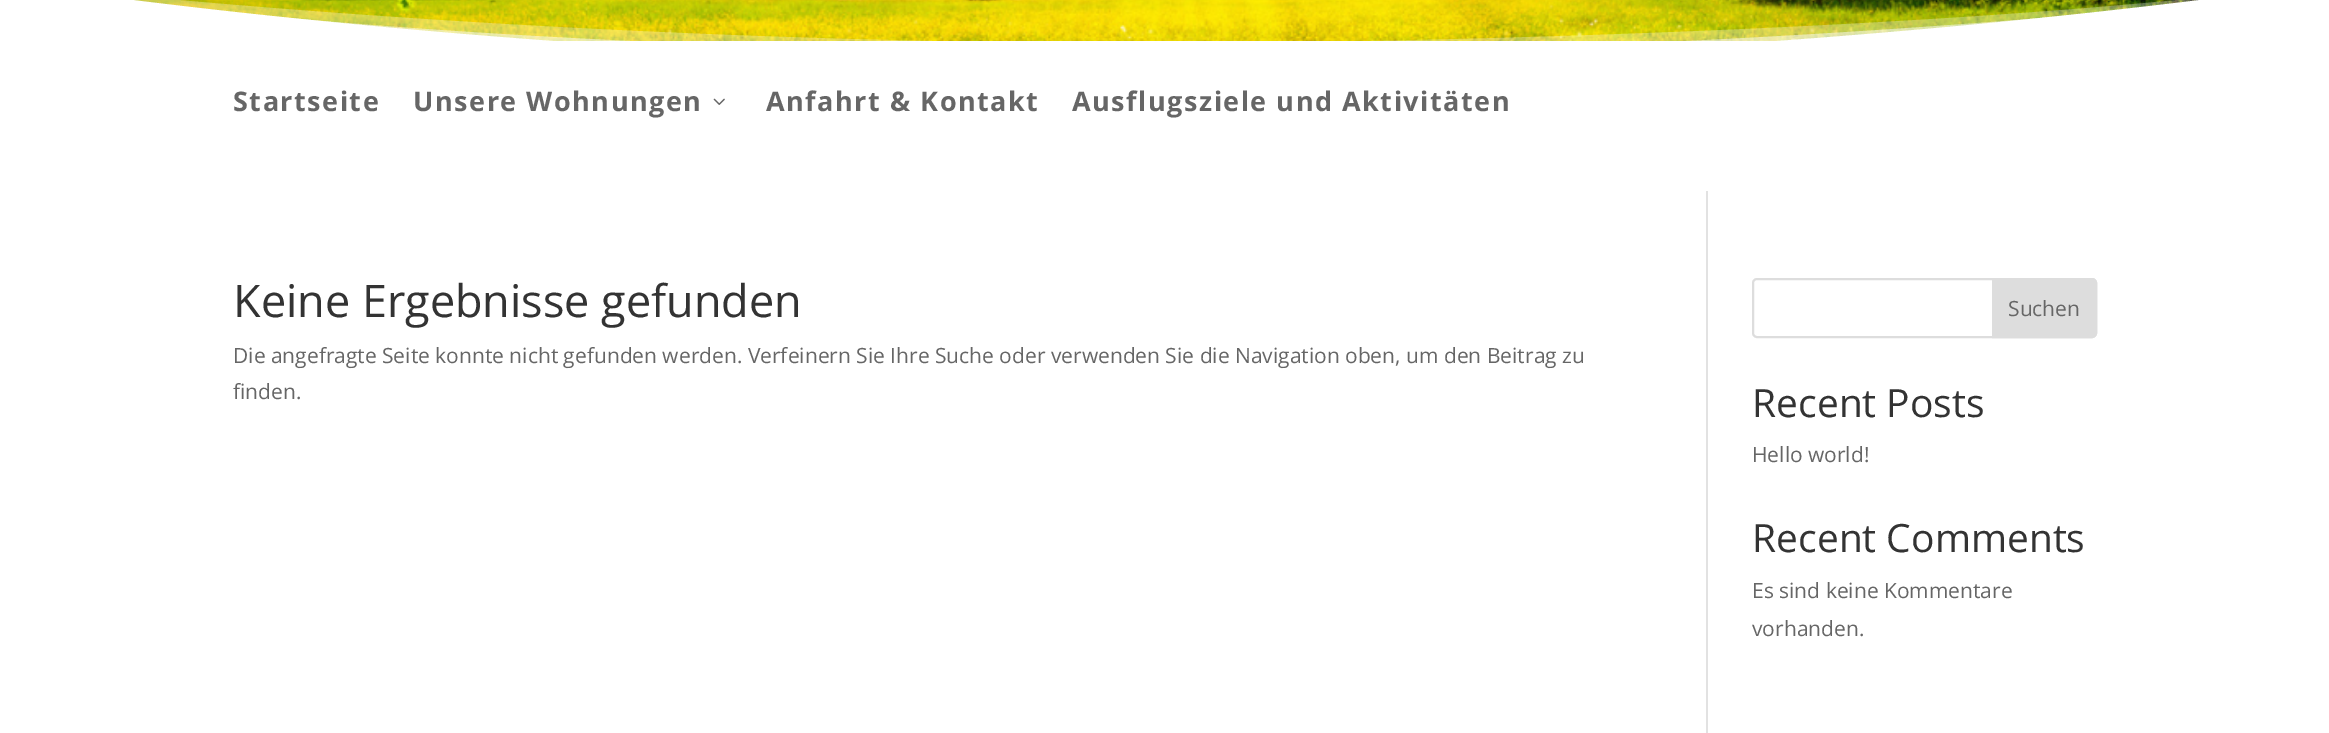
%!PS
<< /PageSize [2329 733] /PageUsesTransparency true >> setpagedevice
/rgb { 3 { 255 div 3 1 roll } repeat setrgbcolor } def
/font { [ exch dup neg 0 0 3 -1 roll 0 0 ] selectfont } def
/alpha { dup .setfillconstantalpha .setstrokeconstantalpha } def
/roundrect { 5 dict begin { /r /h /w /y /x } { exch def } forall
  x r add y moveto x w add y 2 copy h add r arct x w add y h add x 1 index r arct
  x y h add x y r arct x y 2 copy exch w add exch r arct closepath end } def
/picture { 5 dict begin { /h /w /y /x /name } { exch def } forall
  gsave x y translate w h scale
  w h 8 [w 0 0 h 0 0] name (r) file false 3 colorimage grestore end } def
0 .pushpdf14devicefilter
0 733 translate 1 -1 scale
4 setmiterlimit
255 255 255 rgb
0 0 2329 733 rectfill
(img/1.rgb) 132 0 2068 41 picture
0.3 alpha
1320 42 moveto 592 54 0 -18 0 -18 curveto 0 64 lineto 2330 64 lineto 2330 -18 lineto 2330 -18 2048 29 1320 42 curveto closepath fill
0.5 alpha
1013 53 moveto 1735 64 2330 -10 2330 -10 curveto 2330 64 lineto 0 64 lineto 0 -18 lineto 0 -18 290 41 1013 53 curveto closepath fill
1 alpha
1165 64 moveto 1808 64 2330 -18 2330 -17 curveto 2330 65 lineto 0 65 lineto 0 -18 lineto 0 -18 521 64 1165 64 curveto closepath fill
(img/2.rgb) 713 98 12 7 picture
226 226 226 rgb
1706 191 2 542 rectfill
221 221 221 rgb
2 setlinewidth
1753 279 343 58 4 roundrect stroke
1993 279 moveto 2092 279 lineto 2094 279 2096 281 2096 283 curveto 2096 333 lineto 2096 335 2094 337 2092 337 curveto 1993 337 lineto closepath gsave fill grestore
stroke
/OpenSans-Bold 27 font
102 102 102 rgb
233 111 moveto 1.5 0 (Startseite) ashow
413 111 moveto 1.5 0 (Unsere Wohnungen) ashow
766 111 moveto 1.5 0 (Anfahrt & Kontakt) ashow
1072 111 moveto 1.5 0 (Ausflugsziele und Aktivitäten) ashow
/OpenSans-Regular 45 font
51 51 51 rgb
233 317 moveto (Keine Ergebnisse gefunden) show
/OpenSans-Regular 21 font
102 102 102 rgb
[
  [(Die angefragte Seite konnte nicht gefunden werden. Verfeinern Sie Ihre Suche oder verwenden Sie die Navigation oben, um den Beitrag zu) 233 363]
  [(finden.) 233 399]
  [(Suchen) 2008 316]
] { aload pop moveto show } forall
/OpenSans-Regular 39 font
51 51 51 rgb
1752 417 moveto (Recent Posts) show
/OpenSans-Regular 21 font
102 102 102 rgb
1752 462 moveto (Hello world!) show
/OpenSans-Regular 39 font
51 51 51 rgb
1752 552 moveto (Recent Comments) show
/OpenSans-Regular 21 font
102 102 102 rgb
1752 598 moveto (Es sind keine Kommentare) show
1752 636 moveto (vorhanden.) show
.poppdf14devicefilter showpage
